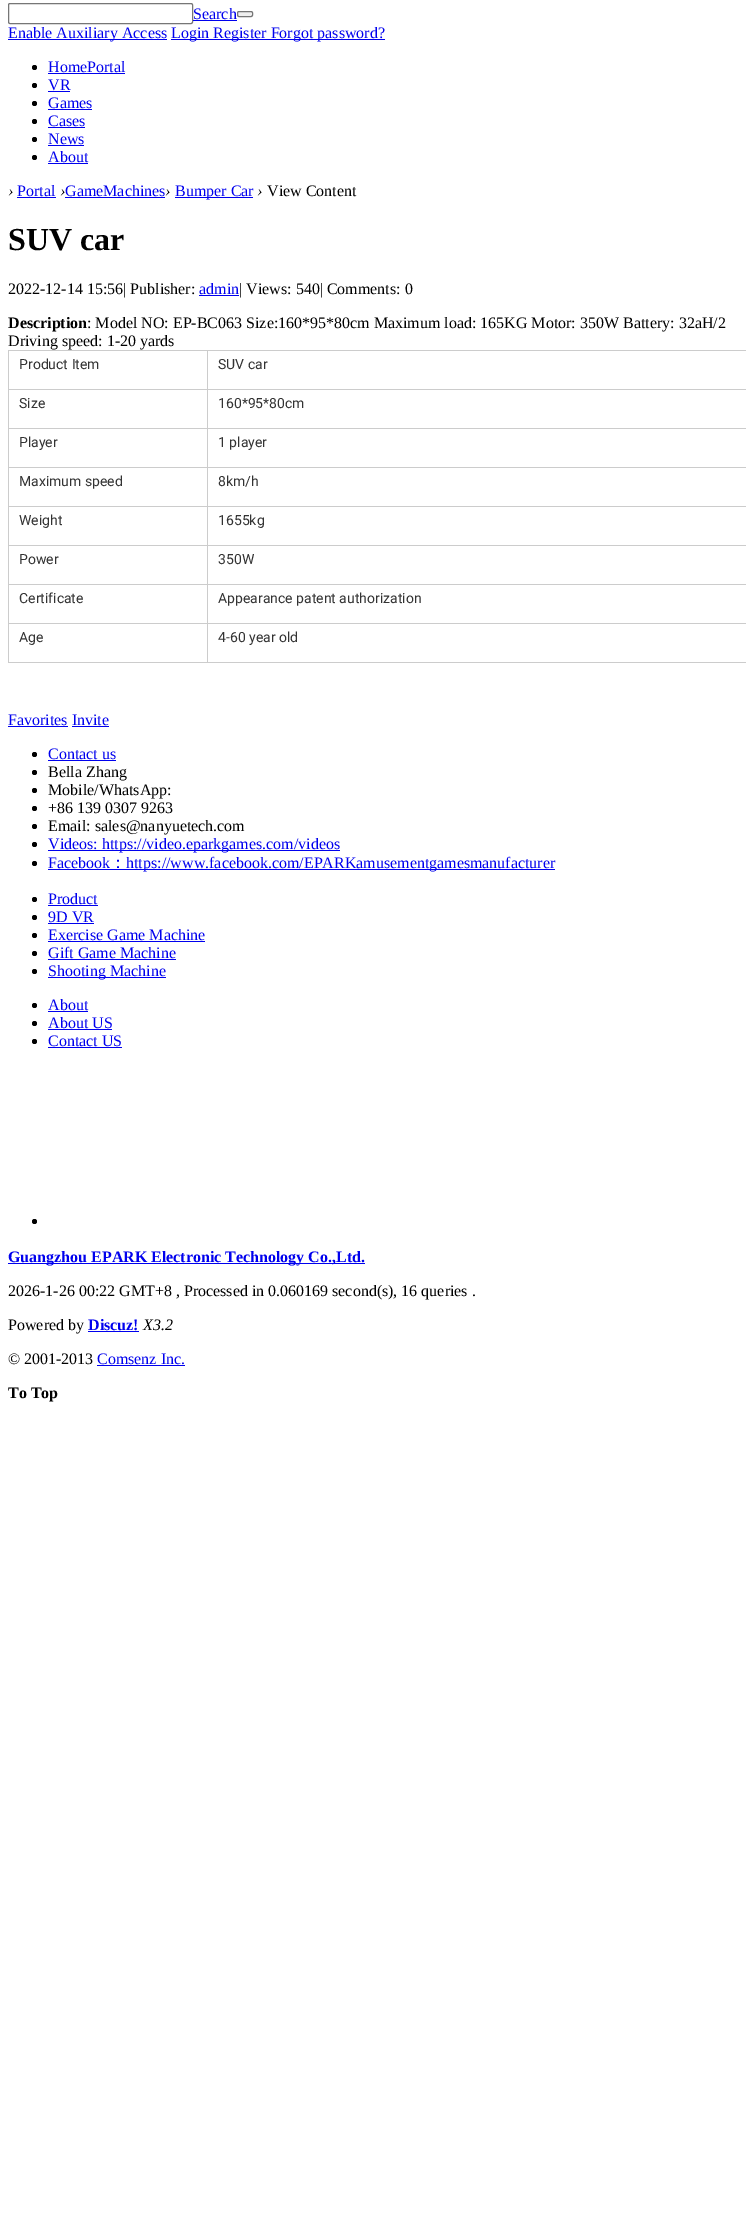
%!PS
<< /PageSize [746 2223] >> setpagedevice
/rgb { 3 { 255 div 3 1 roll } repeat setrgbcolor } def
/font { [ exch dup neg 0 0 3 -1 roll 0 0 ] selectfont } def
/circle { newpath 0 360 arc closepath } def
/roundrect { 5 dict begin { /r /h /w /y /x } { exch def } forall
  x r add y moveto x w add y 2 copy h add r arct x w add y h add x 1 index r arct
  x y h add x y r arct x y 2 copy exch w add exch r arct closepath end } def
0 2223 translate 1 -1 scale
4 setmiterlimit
255 255 255 rgb
0 0 746 2223 rectfill
118 118 118 rgb
8.5 3.5 184 20 1.5 roundrect stroke
0 0 238 rgb
193 20 44 1 rectfill
239 239 239 rgb
237.5 11.5 15 5 1.5 roundrect gsave fill grestore
118 118 118 rgb
stroke
0 0 238 rgb
8 39 159 1 rectfill
171 39 214 1 rectfill
0 0 0 rgb
34.5 67.5 2.5 circle fill
0 0 238 rgb
48 73 77 1 rectfill
0 0 0 rgb
34.5 85.5 2.5 circle fill
0 0 238 rgb
48 91 22 1 rectfill
0 0 0 rgb
34.5 103.5 2.5 circle fill
0 0 238 rgb
48 109 44 1 rectfill
0 0 0 rgb
34.5 121.5 2.5 circle fill
0 0 238 rgb
48 127 37 1 rectfill
0 0 0 rgb
34.5 139.5 2.5 circle fill
0 0 238 rgb
48 145 36 1 rectfill
0 0 0 rgb
34.5 157.5 2.5 circle fill
[
  [48 163 40 1 0 0 238]
  [17 197 39 1 0 0 238]
  [65 197 100 1 0 0 238]
  [175 197 78 1 0 0 238]
  [199 295 40 1 0 0 238]
  [207 350 539 1 204 204 204]
  [207 389 539 1 204 204 204]
  [207 428 539 1 204 204 204]
  [207 467 539 1 204 204 204]
  [207 506 539 1 204 204 204]
  [207 545 539 1 204 204 204]
  [207 584 539 1 204 204 204]
  [207 623 539 1 204 204 204]
  [207 662 539 1 204 204 204]
  [207 623 1 40 204 204 204]
  [8 623 200 1 204 204 204]
  [207 584 1 40 204 204 204]
  [8 584 200 1 204 204 204]
  [207 545 1 40 204 204 204]
  [8 545 200 1 204 204 204]
  [207 506 1 40 204 204 204]
  [8 506 200 1 204 204 204]
  [207 467 1 40 204 204 204]
  [8 467 200 1 204 204 204]
  [207 428 1 40 204 204 204]
  [8 428 200 1 204 204 204]
  [207 389 1 40 204 204 204]
  [8 389 200 1 204 204 204]
  [207 350 1 40 204 204 204]
  [8 350 200 1 204 204 204]
  [8 662 200 1 204 204 204]
  [8 623 1 40 204 204 204]
  [8 584 1 40 204 204 204]
  [8 545 1 40 204 204 204]
  [8 506 1 40 204 204 204]
  [8 467 1 40 204 204 204]
  [8 428 1 40 204 204 204]
  [8 389 1 40 204 204 204]
  [8 350 1 40 204 204 204]
  [8 726 60 1 0 0 238]
  [72 726 37 1 0 0 238]
] { aload pop rgb rectfill } forall
0 0 0 rgb
34.5 754.5 2.5 circle fill
0 0 238 rgb
48 760 68 1 rectfill
0 0 0 rgb
34.5 772.5 2.5 circle fill
34.5 790.5 2.5 circle fill
34.5 808.5 2.5 circle fill
34.5 826.5 2.5 circle fill
34.5 844.5 2.5 circle fill
0 0 238 rgb
48 850 292 1 rectfill
0 0 0 rgb
34.5 863.5 2.5 circle fill
0 0 238 rgb
48 869 507 1 rectfill
0 0 0 rgb
34.5 899.5 2.5 circle fill
0 0 238 rgb
48 905 50 1 rectfill
0 0 0 rgb
34.5 917.5 2.5 circle fill
0 0 238 rgb
48 923 46 1 rectfill
0 0 0 rgb
34.5 935.5 2.5 circle fill
0 0 238 rgb
48 941 157 1 rectfill
0 0 0 rgb
34.5 953.5 2.5 circle fill
0 0 238 rgb
48 959 128 1 rectfill
0 0 0 rgb
34.5 971.5 2.5 circle fill
0 0 238 rgb
48 977 118 1 rectfill
0 0 0 rgb
34.5 1005.5 2.5 circle fill
0 0 238 rgb
48 1011 40 1 rectfill
0 0 0 rgb
34.5 1023.5 2.5 circle fill
0 0 238 rgb
48 1029 64 1 rectfill
0 0 0 rgb
34.5 1041.5 2.5 circle fill
0 0 238 rgb
48 1047 74 1 rectfill
0 0 0 rgb
34.5 1221.5 2.5 circle fill
[
  [8 1263 357 1 0 0 238]
  [88 1331 51 1 0 0 238]
  [97 1365 88 1 0 0 238]
] { aload pop rgb rectfill } forall
/LiberationSerif-Regular 16 font
[
  [(Search) 193 19]
  [(Enable Auxiliary Access) 8 38]
  [(Login Register Forgot password?) 171 38]
  [(HomePortal) 48 72]
  [(VR) 48 90]
  [(Games) 48 108]
  [(Cases) 48 126]
  [(News) 48 144]
  [(About) 48 162]
] { aload pop moveto show } forall
/LiberationSerif-Italic 16 font
0 0 0 rgb
8 196 moveto (›) show
/LiberationSerif-Regular 16 font
0 0 238 rgb
17 196 moveto (Portal) show
/LiberationSerif-Italic 16 font
0 0 0 rgb
60 196 moveto (›) show
/LiberationSerif-Regular 16 font
0 0 238 rgb
65 196 moveto (GameMachines) show
/LiberationSerif-Italic 16 font
0 0 0 rgb
165 196 moveto (›) show
/LiberationSerif-Regular 16 font
0 0 238 rgb
175 196 moveto (Bumper Car) show
/LiberationSerif-Italic 16 font
0 0 0 rgb
257 196 moveto (›) show
/LiberationSerif-Regular 16 font
267 196 moveto (View Content) show
/LiberationSerif-Bold 32 font
8 250 moveto (SUV car) show
/LiberationSerif-Regular 16 font
8 294 moveto (2022-12-14 15:56| Publisher:) show
0 0 238 rgb
199 294 moveto (admin) show
0 0 0 rgb
239 294 moveto (| Views: 540| Comments: 0) show
/LiberationSerif-Bold 16 font
8 328 moveto (Description) show
/LiberationSerif-Regular 16 font
87 328 moveto (: Model NO: EP-BC063 Size:160*95*80cm Maximum load: 165KG Motor: 350W Battery: 32aH/2) show
8 346 moveto (Driving speed: 1-20 yards) show
/Roboto-Regular 14 font
51 51 51 rgb
[
  [(Product Item) 19 369]
  [(SUV car) 218 369]
  [(Size) 19 408]
  [(160*95*80cm) 218 408]
  [(Player) 19 447]
  [(1 player) 218 447]
  [(Maximum speed) 19 486]
  [(8km/h) 218 486]
  [(Weight) 19 525]
  [(1655kg) 218 525]
  [(Power) 19 564]
  [(350W) 218 564]
  [(Certificate) 19 603]
  [(Appearance patent authorization) 218 603]
  [(Age) 19 642]
  [(4-60 year old) 218 642]
] { aload pop moveto show } forall
/LiberationSerif-Regular 16 font
0 0 238 rgb
8 725 moveto (Favorites Invite) show
48 759 moveto (Contact us) show
0 0 0 rgb
[
  [(Bella Zhang) 48 777]
  [(Mobile/WhatsApp:) 48 795]
  [(+86 139 0307 9263) 48 813]
  [(Email: sales@nanyuetech.com) 48 831]
] { aload pop moveto show } forall
0 0 238 rgb
48 849 moveto (Videos: https://video.eparkgames.com/videos) show
48 868 moveto (Facebook) show
/WenQuanYiZenHei-Medium 16 font
110 868 moveto (：) show
/LiberationSerif-Regular 16 font
[
  [(https://www.facebook.com/EPARKamusementgamesmanufacturer) 126 868]
  [(Product) 48 904]
  [(9D VR) 48 922]
  [(Exercise Game Machine) 48 940]
  [(Gift Game Machine) 48 958]
  [(Shooting Machine) 48 976]
  [(About) 48 1010]
  [(About US) 48 1028]
  [(Contact US) 48 1046]
] { aload pop moveto show } forall
/LiberationSerif-Bold 16 font
8 1262 moveto (Guangzhou EPARK Electronic Technology Co.,Ltd.) show
/LiberationSerif-Regular 16 font
0 0 0 rgb
8 1296 moveto (2026-1-26 00:22 GMT+8 , Processed in 0.060169 second\(s\), 16 queries .) show
8 1330 moveto (Powered by) show
/LiberationSerif-Bold 16 font
0 0 238 rgb
88 1330 moveto (Discuz!) show
/LiberationSerif-Italic 16 font
0 0 0 rgb
143 1330 moveto (X3.2) show
/LiberationSerif-Regular 16 font
8 1364 moveto (© 2001-2013) show
0 0 238 rgb
97 1364 moveto (Comsenz Inc.) show
/LiberationSerif-Bold 16 font
0 0 0 rgb
8 1398 moveto (To Top) show
showpage
